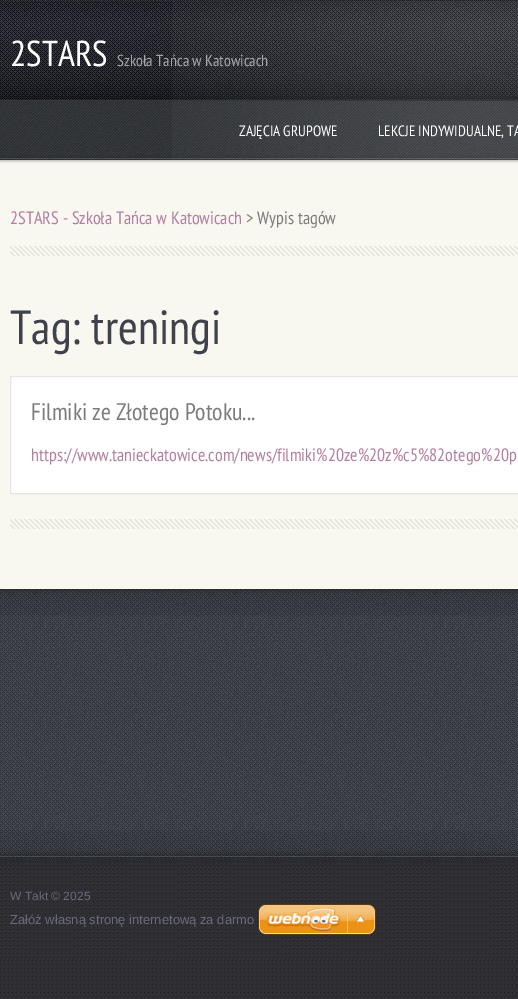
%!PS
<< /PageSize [518 999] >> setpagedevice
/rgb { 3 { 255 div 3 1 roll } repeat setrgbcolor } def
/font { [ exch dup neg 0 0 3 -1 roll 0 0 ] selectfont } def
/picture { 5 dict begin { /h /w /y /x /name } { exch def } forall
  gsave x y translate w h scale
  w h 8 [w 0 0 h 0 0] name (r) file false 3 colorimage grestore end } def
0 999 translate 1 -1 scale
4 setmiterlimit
255 255 255 rgb
0 0 518 999 rectfill
(img/1.rgb) 0 100 518 899 picture
(img/2.rgb) 0 0 518 100 picture
(img/3.rgb) 172 1 346 99 picture
(img/4.rgb) 0 100 518 60 picture
(img/5.rgb) 172 101 346 59 picture
248 247 240 rgb
0 160 518 429 rectfill
(img/6.rgb) 0 160 518 3 picture
(img/7.rgb) 10 246 508 10 picture
(img/7.rgb) 10 519 508 10 picture
255 255 255 rgb
10.5 376.5 moveto 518.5 376.5 lineto 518.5 493.5 lineto 10.5 493.5 lineto closepath gsave fill grestore
229 229 229 rgb
stroke
(img/8.rgb) 0 589 518 267 picture
(img/9.rgb) 0 589 518 27 picture
(img/10.rgb) 0 830 518 26 picture
(img/11.rgb) 0 856 518 103 picture
(img/12.rgb) 258 904 118 31 picture
/PTSansNarrow-Regular 36 font
255 255 255 rgb
10 66 moveto (2STARS) show
/PTSansNarrow-Regular 16 font
167 168 171 rgb
117 66 moveto (Szkoła Tańca w Katowicach) show
/PTSansNarrow-Regular 15 font
255 255 255 rgb
239 136 moveto (ZAJĘCIA GRUPOWE) show
378 136 moveto (LEKCJE INDYWIDUALNE, TA) show
/PTSansNarrow-Regular 18 font
179 127 161 rgb
10 224 moveto (2STARS - Szkoła Tańca w Katowicach) show
124 124 124 rgb
246 224 moveto (> Wypis tagów) show
/PTSansNarrow-Regular 48 font
63 66 74 rgb
10 344 moveto (Tag: treningi) show
/PTSansNarrow-Regular 24 font
124 124 124 rgb
31 420 moveto (Filmiki ze Złotego Potoku...) show
/PTSansNarrow-Regular 18 font
179 127 161 rgb
31 461 moveto (https://www.tanieckatowice.com/news/filmiki%20ze%20z%c5%82otego%20p) show
/LiberationSans-Regular 12 font
104 107 122 rgb
10 900 moveto (W Takt © 2025) show
/LiberationSans-Regular 13 font
10 924 moveto (Załóż własną stronę internetową za darmo) show
showpage
